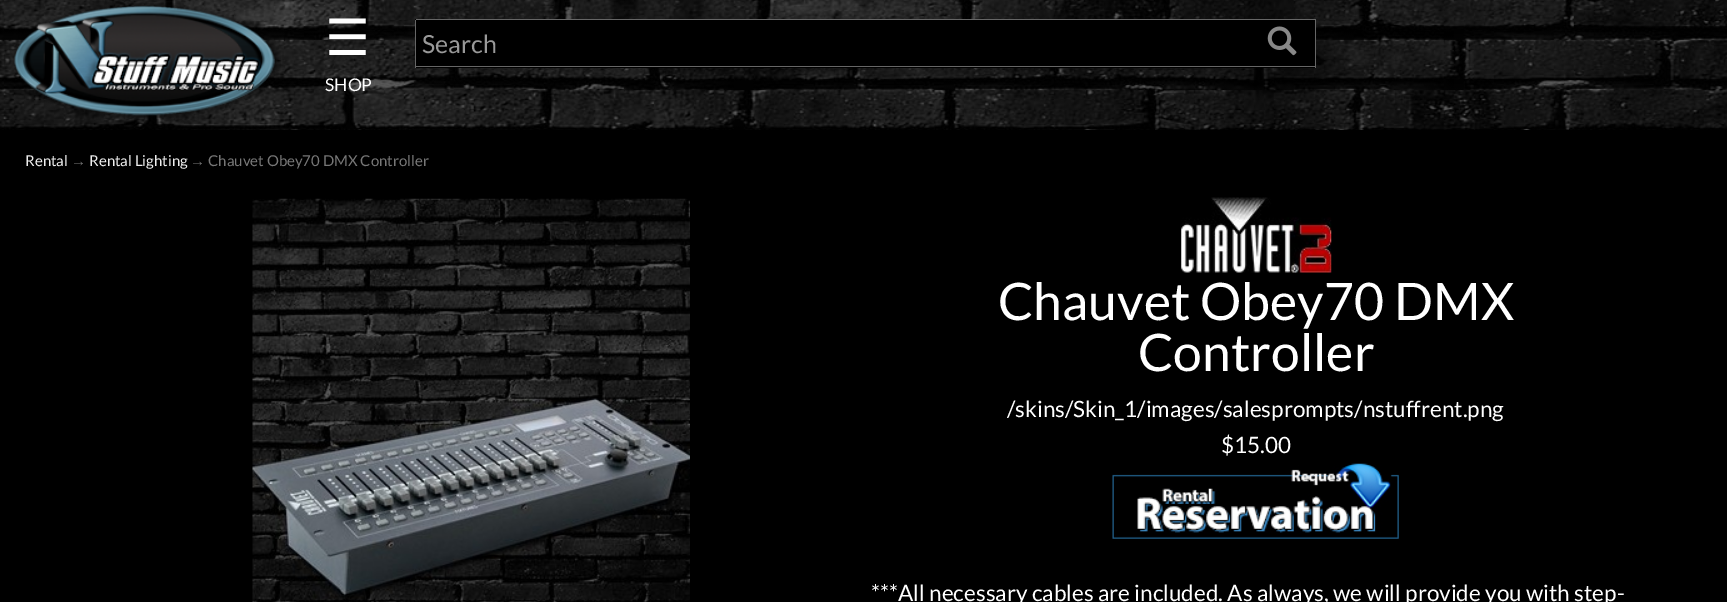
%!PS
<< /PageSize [1727 602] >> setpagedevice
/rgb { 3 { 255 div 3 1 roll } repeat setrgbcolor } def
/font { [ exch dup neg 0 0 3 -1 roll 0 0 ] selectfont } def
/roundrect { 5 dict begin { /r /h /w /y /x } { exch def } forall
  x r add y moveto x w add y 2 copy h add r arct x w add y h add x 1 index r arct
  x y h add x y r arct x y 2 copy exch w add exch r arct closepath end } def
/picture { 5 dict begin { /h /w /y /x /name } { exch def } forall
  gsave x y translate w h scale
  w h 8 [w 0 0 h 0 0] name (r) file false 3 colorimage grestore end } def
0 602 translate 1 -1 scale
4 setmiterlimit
0 0 0 rgb
0 0 1727 602 rectfill
(img/1.rgb) 0 0 1727 130 picture
(img/2.rgb) 14 3 267 115 picture
415 19 834 49 1 roundrect fill
[
  [416 19 900 1 102 102 102]
  [416 66 833 1 102 102 102]
  [415 20 1 48 102 102 102]
  [1249 20 66 48 0 0 0]
  [1315 19 1 49 102 102 102]
  [1249 66 67 1 102 102 102]
] { aload pop rgb rectfill } forall
(img/3.rgb) 1267 26 30 30 picture
(img/4.rgb) 252 198 438 404 picture
(img/5.rgb) 1181 197 151 76 picture
(img/6.rgb) 1112 463 287 76 picture
/DejaVuSans-Regular 50 font
255 255 255 rgb
325 55 moveto (☰) show
/Lato-Regular 17.5 font
325 91 moveto (SHOP) show
/Lato-Regular 25 font
153 153 153 rgb
422 53 moveto (Search) show
/Lato-Regular 15 font
238 238 238 rgb
25 166 moveto (Rental) show
/LiberationSans-Regular 15 font
119 119 119 rgb
71 166 moveto (→) show
/Lato-Regular 15 font
238 238 238 rgb
89 166 moveto (Rental Lighting) show
/LiberationSans-Regular 15 font
119 119 119 rgb
190 166 moveto (→) show
/Lato-Regular 15 font
208 166 moveto (Chauvet Obey70 DMX Controller) show
/Lato-Regular 51.75 font
255 255 255 rgb
998 320 moveto (Chauvet Obey70 DMX) show
1138 371 moveto (Controller) show
/Lato-Regular 22.5 font
[
  [(/skins/Skin_1/images/salesprompts/nstuffrent.png) 1007 417]
  [($15.00) 1221 453]
  [(***All necessary cables are included. As always, we will provide you with step-) 871 601]
] { aload pop moveto show } forall
showpage
